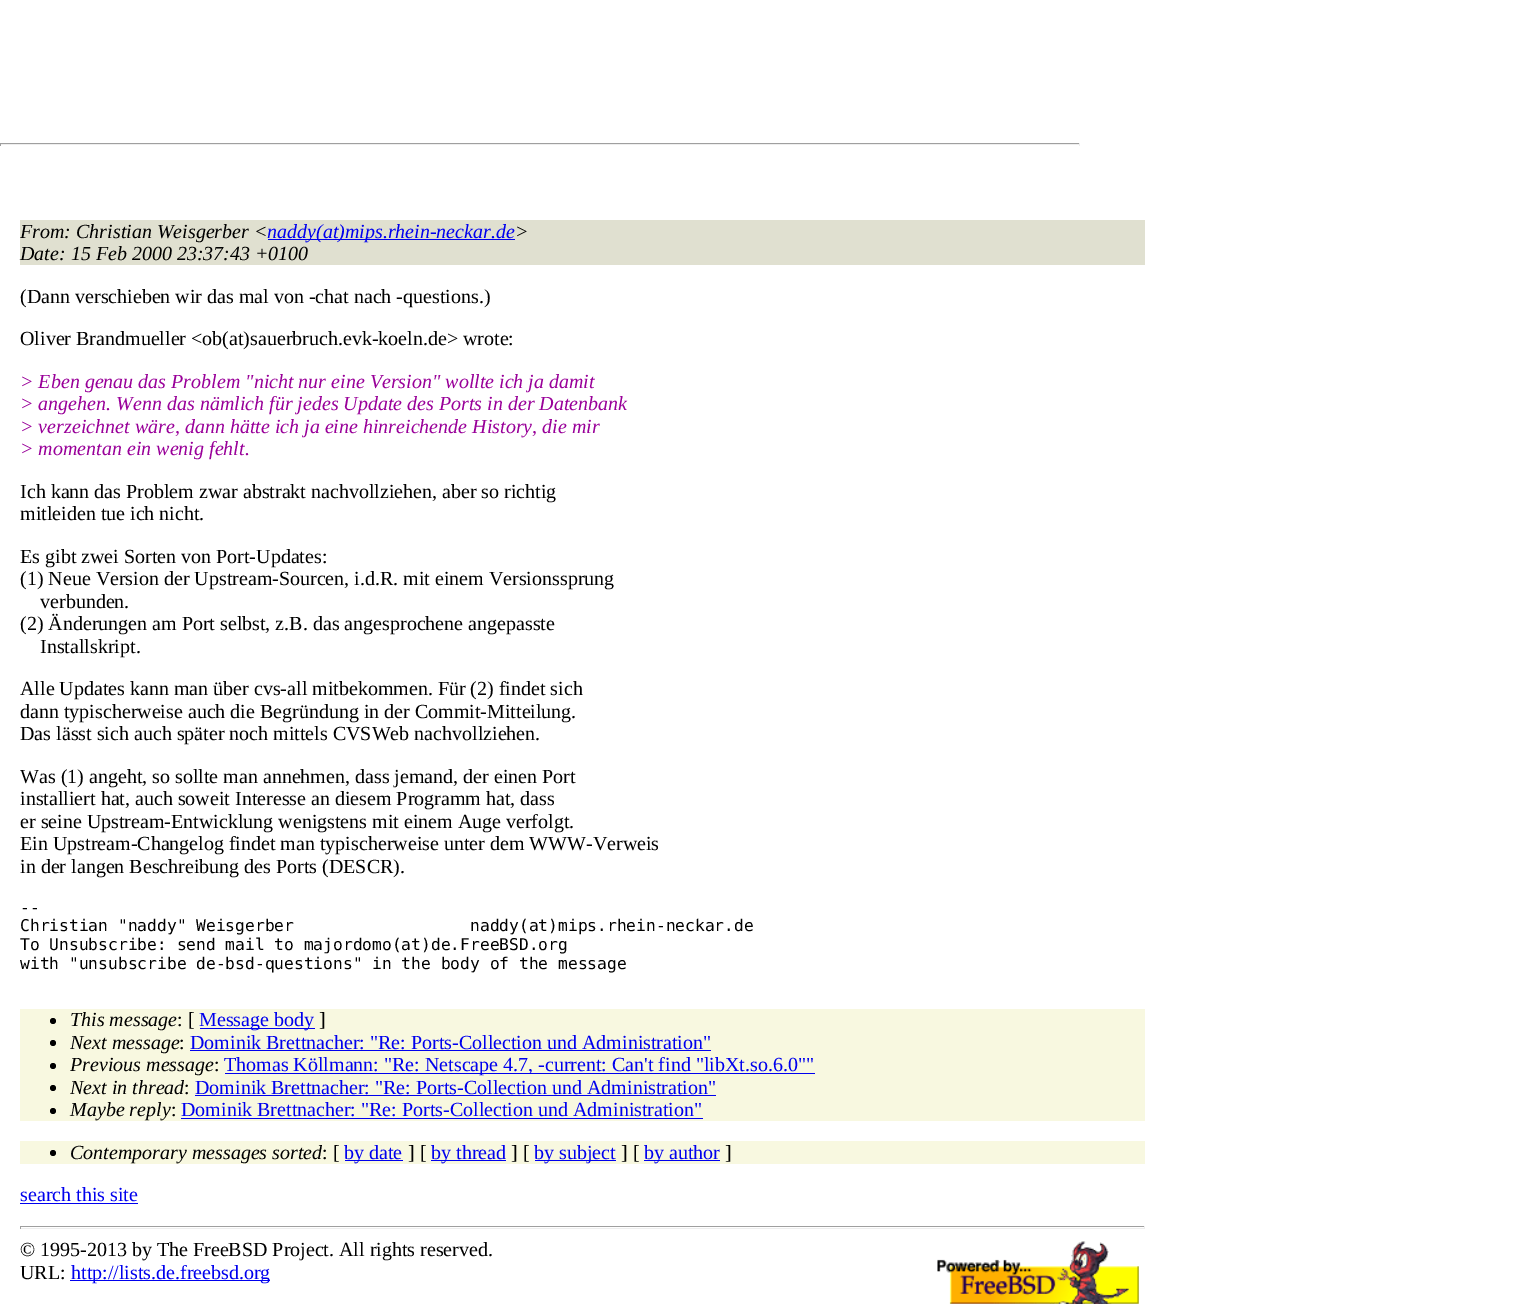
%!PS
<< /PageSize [1520 1304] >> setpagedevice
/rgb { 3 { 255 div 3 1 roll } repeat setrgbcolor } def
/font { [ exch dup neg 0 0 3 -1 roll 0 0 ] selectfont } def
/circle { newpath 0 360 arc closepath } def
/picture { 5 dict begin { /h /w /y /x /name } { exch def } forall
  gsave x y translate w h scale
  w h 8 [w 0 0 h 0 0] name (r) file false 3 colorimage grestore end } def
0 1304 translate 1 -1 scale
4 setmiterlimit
255 255 255 rgb
0 0 1520 1304 rectfill
[
  [0 143 1080 1 159 159 159]
  [1079 143 1 3 238 238 238]
  [0 144 1080 1 238 238 238]
  [0 143 1 3 159 159 159]
  [20 220 1125 45 224 224 208]
  [268 239 247 1 0 0 238]
  [20 1009 1125 112 248 248 224]
] { aload pop rgb rectfill } forall
0 0 0 rgb
53 1021 3 circle fill
0 0 238 rgb
200 1028 115 1 rectfill
0 0 0 rgb
53 1043 3 circle fill
0 0 238 rgb
190 1050 521 1 rectfill
0 0 0 rgb
53 1066 3 circle fill
0 0 238 rgb
225 1073 590 1 rectfill
0 0 0 rgb
53 1088 3 circle fill
0 0 238 rgb
195 1095 521 1 rectfill
0 0 0 rgb
53 1111 3 circle fill
0 0 238 rgb
181 1118 522 1 rectfill
248 248 224 rgb
20 1141 1125 23 rectfill
0 0 0 rgb
53 1153 3 circle fill
[
  [345 1160 58 1 0 0 238]
  [431 1160 75 1 0 0 238]
  [535 1160 81 1 0 0 238]
  [644 1160 76 1 0 0 238]
  [20 1203 118 1 0 0 238]
  [20 1226 1125 1 159 159 159]
  [1144 1226 1 3 238 238 238]
  [20 1228 1125 1 238 238 238]
  [20 1226 1 3 159 159 159]
] { aload pop rgb rectfill } forall
(img/1.rgb) 937 1241 202 63 picture
0 0 238 rgb
70 1280 200 1 rectfill
/LiberationSerif-Italic 20 font
0 0 0 rgb
20 238 moveto (From: Christian Weisgerber <) show
0 0 238 rgb
267 238 moveto (naddy\(at\)mips.rhein-neckar.de) show
0 0 0 rgb
515 238 moveto (>) show
20 260 moveto (Date: 15 Feb 2000 23:37:43 +0100) show
/LiberationSerif-Regular 20 font
20 303 moveto (\(Dann verschieben wir das mal von -chat nach -questions.\)) show
20 345 moveto (Oliver Brandmueller <ob\(at\)sauerbruch.evk-koeln.de> wrote:) show
/LiberationSerif-Italic 20 font
153 0 153 rgb
[
  [(> Eben genau das Problem "nicht nur eine Version" wollte ich ja damit) 20 388]
  [(> angehen. Wenn das nämlich für jedes Update des Ports in der Datenbank) 20 410]
  [(> verzeichnet wäre, dann hätte ich ja eine hinreichende History, die mir) 20 433]
  [(> momentan ein wenig fehlt.) 20 455]
] { aload pop moveto show } forall
/LiberationSerif-Regular 20 font
0 0 0 rgb
[
  [(Ich kann das Problem zwar abstrakt nachvollziehen, aber so richtig) 20 498]
  [(mitleiden tue ich nicht.) 20 520]
  [(Es gibt zwei Sorten von Port-Updates:) 20 563]
  [(\(1\) Neue Version der Upstream-Sourcen, i.d.R. mit einem Versionssprung) 20 585]
  [(verbunden.) 40 608]
  [(\(2\) Änderungen am Port selbst, z.B. das angesprochene angepasste) 20 630]
  [(Installskript.) 40 653]
  [(Alle Updates kann man über cvs-all mitbekommen. Für \(2\) findet sich) 20 695]
  [(dann typischerweise auch die Begründung in der Commit-Mitteilung.) 20 718]
  [(Das lässt sich auch später noch mittels CVSWeb nachvollziehen.) 20 740]
  [(Was \(1\) angeht, so sollte man annehmen, dass jemand, der einen Port) 20 783]
  [(installiert hat, auch soweit Interesse an diesem Programm hat, dass) 20 805]
  [(er seine Upstream-Entwicklung wenigstens mit einem Auge verfolgt.) 20 828]
  [(Ein Upstream-Changelog findet man typischerweise unter dem WWW-Verweis) 20 850]
  [(in der langen Beschreibung des Ports \(DESCR\).) 20 873]
] { aload pop moveto show } forall
/DejaVuSansMono-Regular 16.25 font
[
  [(--) 20 913]
  [(Christian "naddy" Weisgerber                  naddy\(at\)mips.rhein-neckar.de) 20 931]
  [(To Unsubscribe: send mail to majordomo\(at\)de.FreeBSD.org) 20 950]
  [(with "unsubscribe de-bsd-questions" in the body of the message) 20 969]
] { aload pop moveto show } forall
/LiberationSerif-Italic 20 font
70 1026 moveto (This message) show
/LiberationSerif-Regular 20 font
177 1026 moveto (: [) show
0 0 238 rgb
199 1026 moveto (Message body) show
0 0 0 rgb
319 1026 moveto (]) show
/LiberationSerif-Italic 20 font
70 1049 moveto (Next message) show
/LiberationSerif-Regular 20 font
179 1049 moveto (:) show
0 0 238 rgb
190 1049 moveto (Dominik Brettnacher: "Re: Ports-Collection und Administration") show
/LiberationSerif-Italic 20 font
0 0 0 rgb
70 1071 moveto (Previous message) show
/LiberationSerif-Regular 20 font
214 1071 moveto (:) show
0 0 238 rgb
224 1071 moveto (Thomas Köllmann: "Re: Netscape 4.7, -current: Can't find "libXt.so.6.0"") show
/LiberationSerif-Italic 20 font
0 0 0 rgb
70 1094 moveto (Next in thread) show
/LiberationSerif-Regular 20 font
184 1094 moveto (:) show
0 0 238 rgb
195 1094 moveto (Dominik Brettnacher: "Re: Ports-Collection und Administration") show
/LiberationSerif-Italic 20 font
0 0 0 rgb
70 1116 moveto (Maybe reply) show
/LiberationSerif-Regular 20 font
171 1116 moveto (:) show
0 0 238 rgb
181 1116 moveto (Dominik Brettnacher: "Re: Ports-Collection und Administration") show
/LiberationSerif-Italic 20 font
0 0 0 rgb
70 1159 moveto (Contemporary messages sorted) show
/LiberationSerif-Regular 20 font
322 1159 moveto (: [) show
0 0 238 rgb
344 1159 moveto (by date) show
0 0 0 rgb
408 1159 moveto (] [) show
0 0 238 rgb
431 1159 moveto (by thread) show
0 0 0 rgb
511 1159 moveto (] [) show
0 0 238 rgb
534 1159 moveto (by subject) show
0 0 0 rgb
621 1159 moveto (] [) show
0 0 238 rgb
644 1159 moveto (by author) show
0 0 0 rgb
725 1159 moveto (]) show
0 0 238 rgb
20 1201 moveto (search this site) show
0 0 0 rgb
20 1256 moveto (© 1995-2013 by The FreeBSD Project. All rights reserved.) show
20 1279 moveto (URL:) show
0 0 238 rgb
71 1279 moveto (http://lists.de.freebsd.org) show
showpage
